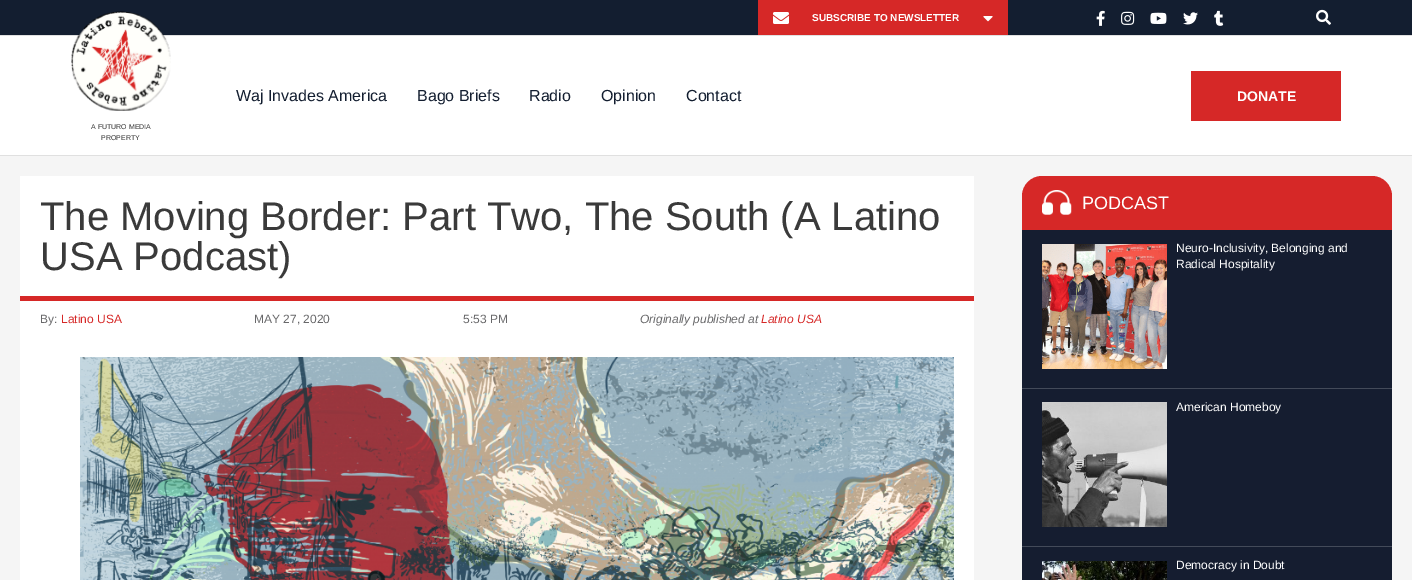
%!PS
<< /PageSize [1412 580] >> setpagedevice
/rgb { 3 { 255 div 3 1 roll } repeat setrgbcolor } def
/font { [ exch dup neg 0 0 3 -1 roll 0 0 ] selectfont } def
/picture { 5 dict begin { /h /w /y /x /name } { exch def } forall
  gsave x y translate w h scale
  w h 8 [w 0 0 h 0 0] name (r) file false 3 colorimage grestore end } def
0 580 translate 1 -1 scale
4 setmiterlimit
245 245 245 rgb
0 0 1412 580 rectfill
[
  [0 36 1412 119 255 255 255]
  [0 155 1412 1 224 224 224]
  [0 0 1412 35 19 30 48]
  [758 0 250 35 214 40 39]
] { aload pop rgb rectfill } forall
(img/1.rgb) 773 12 16 12 picture
(img/2.rgb) 983 16 10 6 picture
(img/3.rgb) 1096 10 9 16 picture
(img/4.rgb) 1121 11 14 14 picture
(img/5.rgb) 1150 12 17 12 picture
(img/6.rgb) 1183 12 15 13 picture
(img/7.rgb) 1214 10 10 16 picture
(img/8.rgb) 1316 9 15 16 picture
224 224 224 rgb
0 35 1412 1 rectfill
214 40 39 rgb
1191 71 150 50 rectfill
(img/9.rgb) 71 11 100 100 picture
255 255 255 rgb
20 176 954 404 rectfill
214 40 39 rgb
20 296 954 5 rectfill
(img/10.rgb) 80 357 874 223 picture
1042 176 moveto 1372 176 lineto 1383 176 1392 185 1392 196 curveto 1392 230 lineto 1022 230 lineto 1022 196 lineto 1022 185 1031 176 1042 176 curveto closepath fill
(img/11.rgb) 1042 190 30 25 picture
21 29 48 rgb
1022 230 370 158 rectfill
67 74 89 rgb
1022 388 370 1 rectfill
(img/12.rgb) 1042 244 125 125 picture
21 29 48 rgb
1022 389 370 157 rectfill
67 74 89 rgb
1022 546 370 1 rectfill
(img/13.rgb) 1042 402 125 125 picture
21 29 48 rgb
1022 547 370 33 rectfill
(img/14.rgb) 1042 561 125 19 picture
/LiberationSans-Bold 10 font
255 255 255 rgb
812 21 moveto (SUBSCRIBE TO NEWSLETTER) show
/LiberationSans-Regular 16 font
19 30 48 rgb
[
  [(Waj Invades America) 236 101]
  [(Bago Briefs) 417 101]
  [(Radio) 529 101]
  [(Opinion) 601 101]
  [(Contact) 686 101]
] { aload pop moveto show } forall
/LiberationSans-Bold 14 font
255 255 255 rgb
1237 101 moveto (DONATE) show
/LiberationSans-Regular 7 font
58 58 58 rgb
91 129 moveto (A FUTURO MEDIA) show
101 140 moveto (PROPERTY) show
/LiberationSans-Regular 40 font
40 230 moveto (The Moving Border: Part Two, The South \(A Latino) show
40 270 moveto (USA Podcast\)) show
/LiberationSans-Regular 12 font
104 104 106 rgb
40 323 moveto (By:) show
214 40 39 rgb
61 323 moveto (Latino USA) show
104 104 106 rgb
254 323 moveto (MAY 27, 2020) show
463 323 moveto (5:53 PM) show
/LiberationSans-Italic 12 font
640 323 moveto (Originally published at) show
214 40 39 rgb
761 323 moveto (Latino USA) show
/LiberationSans-Regular 18 font
255 255 255 rgb
1082 209 moveto (PODCAST) show
/LiberationSans-Regular 12 font
[
  [(Neuro-Inclusivity, Belonging and) 1176 252]
  [(Radical Hospitality) 1176 268]
  [(American Homeboy) 1176 411]
  [(Democracy in Doubt) 1176 569]
] { aload pop moveto show } forall
showpage
